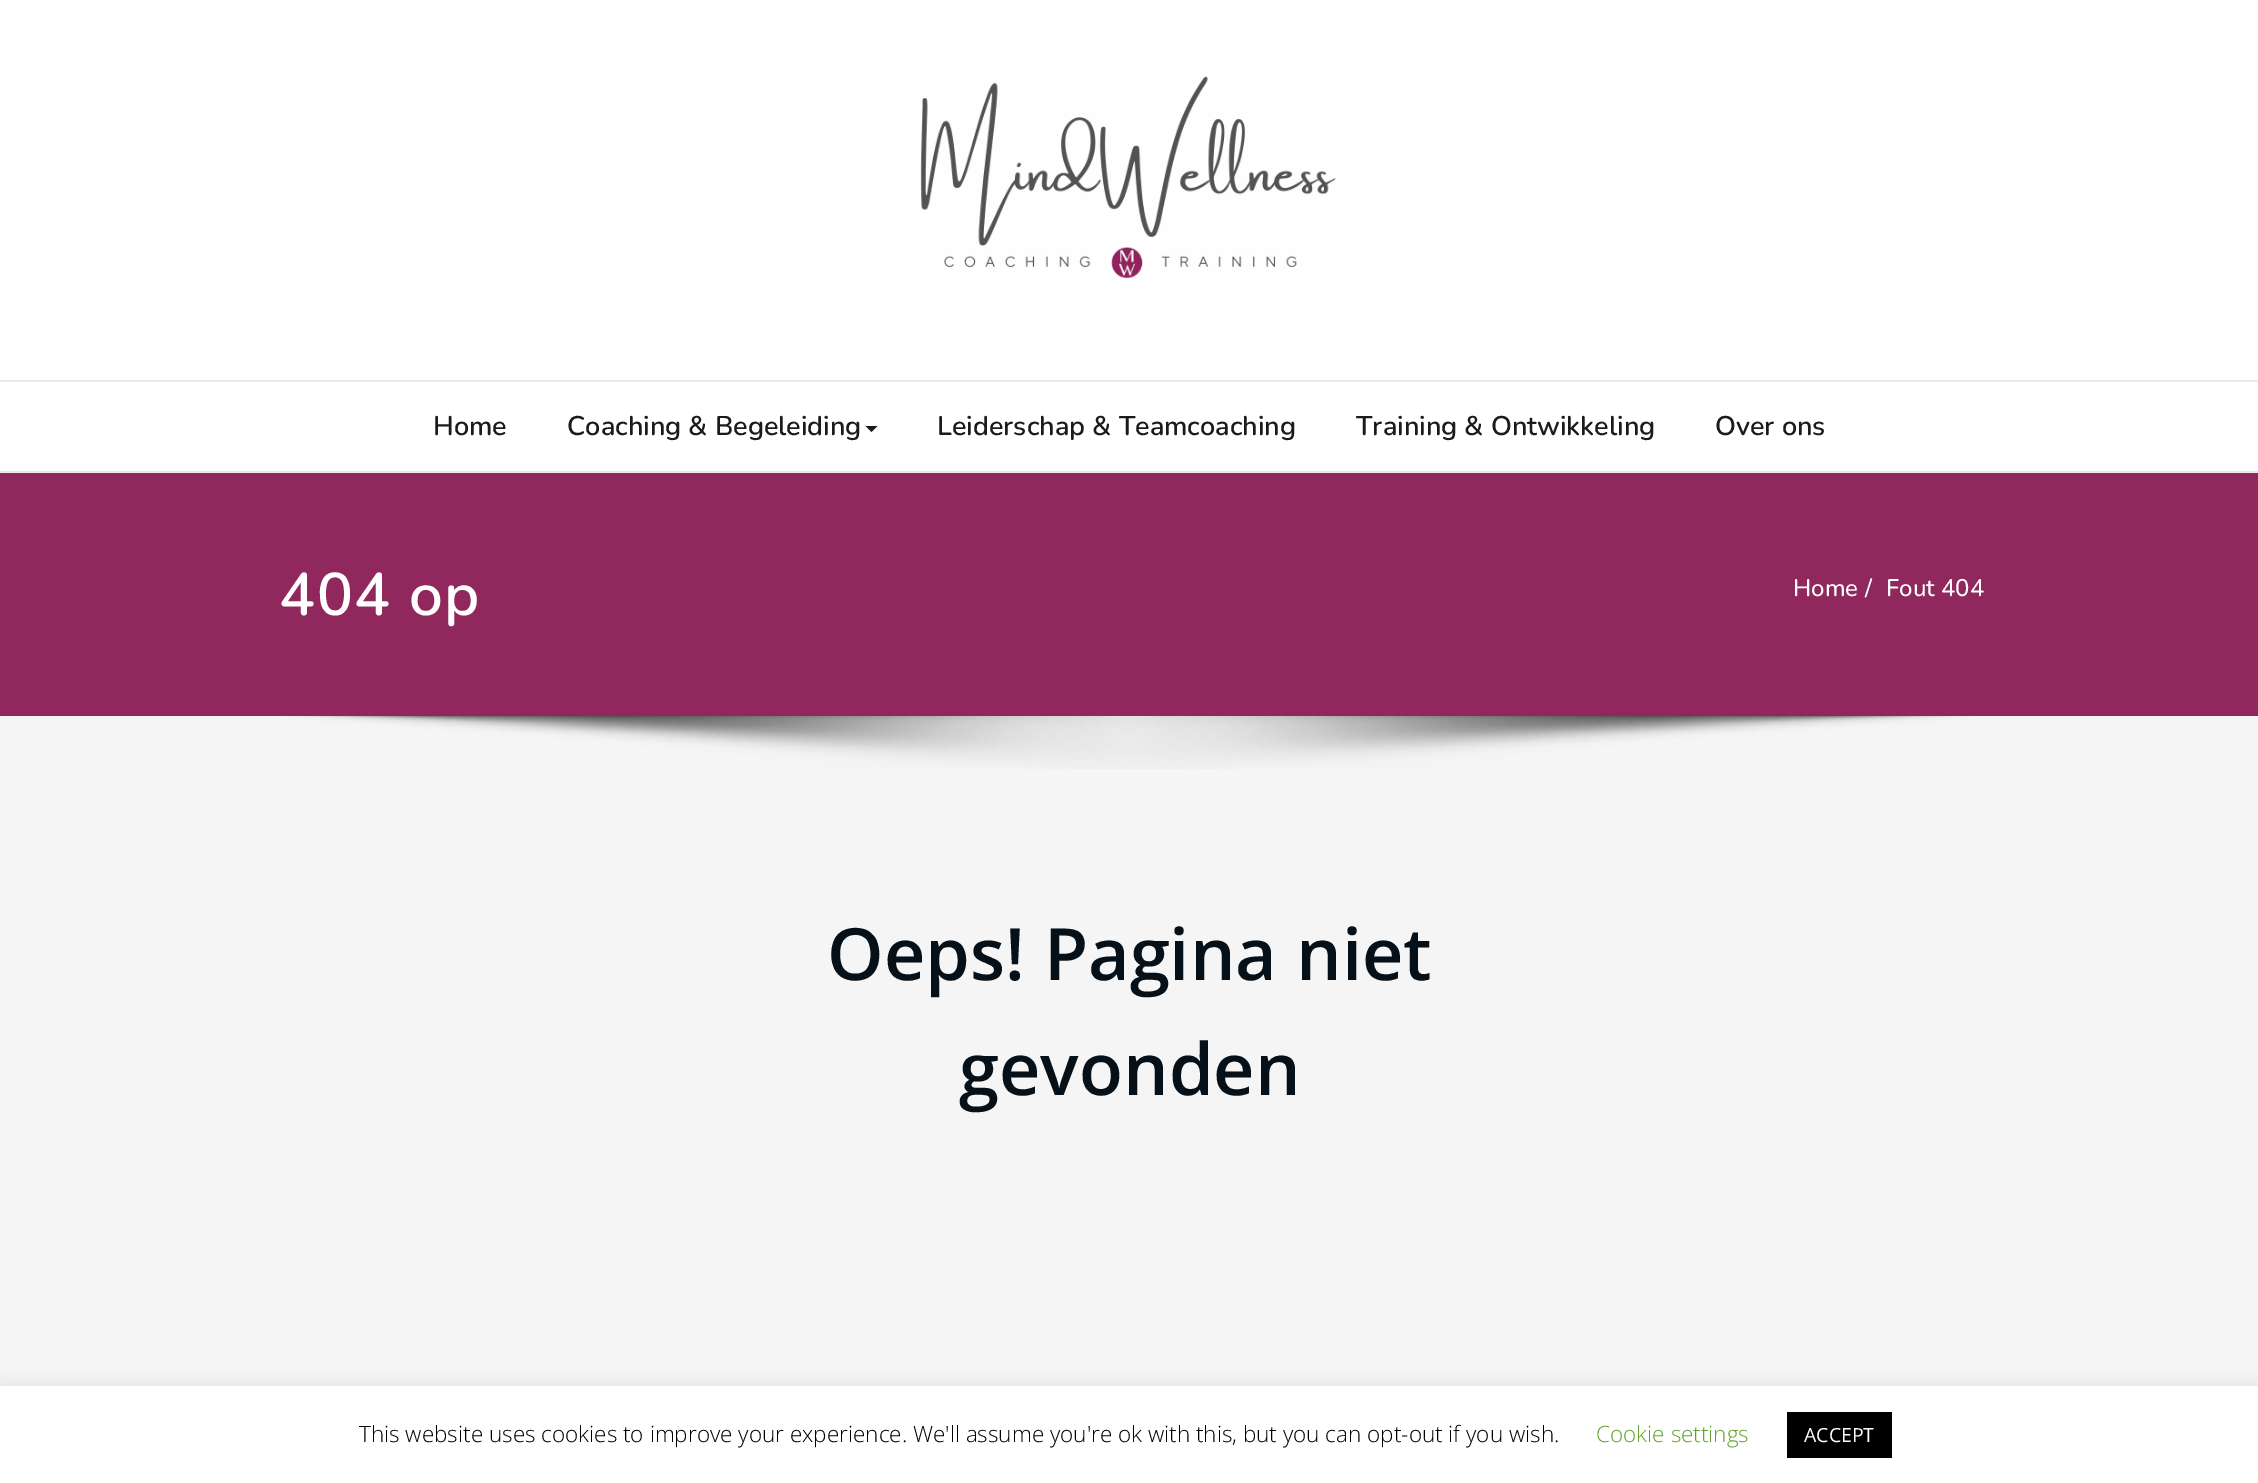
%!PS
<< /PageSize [2258 1483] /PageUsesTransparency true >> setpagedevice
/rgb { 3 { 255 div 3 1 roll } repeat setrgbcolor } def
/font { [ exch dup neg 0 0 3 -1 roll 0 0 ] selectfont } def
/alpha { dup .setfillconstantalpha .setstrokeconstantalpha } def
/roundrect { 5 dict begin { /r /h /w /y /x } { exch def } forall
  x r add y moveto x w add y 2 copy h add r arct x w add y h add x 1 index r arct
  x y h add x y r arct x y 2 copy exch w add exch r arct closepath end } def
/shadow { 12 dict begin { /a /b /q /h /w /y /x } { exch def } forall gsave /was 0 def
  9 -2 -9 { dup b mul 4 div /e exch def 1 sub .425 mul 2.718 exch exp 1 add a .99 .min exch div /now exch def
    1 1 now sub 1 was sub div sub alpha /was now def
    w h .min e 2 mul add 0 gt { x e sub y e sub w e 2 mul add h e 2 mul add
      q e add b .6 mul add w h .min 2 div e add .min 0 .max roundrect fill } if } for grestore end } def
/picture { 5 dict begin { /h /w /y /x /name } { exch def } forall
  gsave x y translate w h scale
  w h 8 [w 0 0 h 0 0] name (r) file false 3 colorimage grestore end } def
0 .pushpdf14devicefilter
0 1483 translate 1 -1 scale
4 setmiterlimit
245 245 245 rgb
0 0 2258 1483 rectfill
255 255 255 rgb
0 0 2258 471 rectfill
(img/1.rgb) 920 76 416 203 picture
233 233 233 rgb
0 380 2258 2 rectfill
0 471 2258 2 rectfill
27 27 27 rgb
865.5 426 moveto 877.5 426 lineto 871.5 432 lineto closepath fill
144 39 93 rgb
0 473 2258 243 rectfill
(img/2.rgb) 287 716 1684 53 picture
172 171 171 rgb
0 1385 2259 97 0 7.5 0.3 shadow
255 255 255 rgb
0 1386 2258 97 rectfill
0 0 0 rgb
1787 1412 105 46 rectfill
/Nunito-SemiBold 27 font
27 27 27 rgb
[
  [(Home) 433 435]
  [(Coaching & Begeleiding) 567 435]
  [(Leiderschap & Teamcoaching) 937 435]
  [(Training & Ontwikkeling) 1356 435]
  [(Over ons) 1715 435]
] { aload pop moveto show } forall
/Nunito-SemiBold 60 font
255 255 255 rgb
279 615 moveto 1.5 0 (404 op) ashow
/Nunito-Medium 24 font
[
  [(Home) 1793 596]
  [(/) 1865 596]
  [(Fout 404) 1886 596]
] { aload pop moveto show } forall
/OpenSans-SemiBold 72 font
6 16 24 rgb
827 980 moveto (Oeps! Pagina niet) show
959 1095 moveto (gevonden) show
/OpenSans-Light 22.5 font
0 0 0 rgb
359 1442 moveto (This website uses cookies to improve your experience. We'll assume you're ok with this, but you can opt-out if you wish.) show
98 163 41 rgb
1596 1442 moveto (Cookie settings) show
/OpenSans-Regular 19.5 font
255 255 255 rgb
1804 1442 moveto (ACCEPT) show
.poppdf14devicefilter showpage
